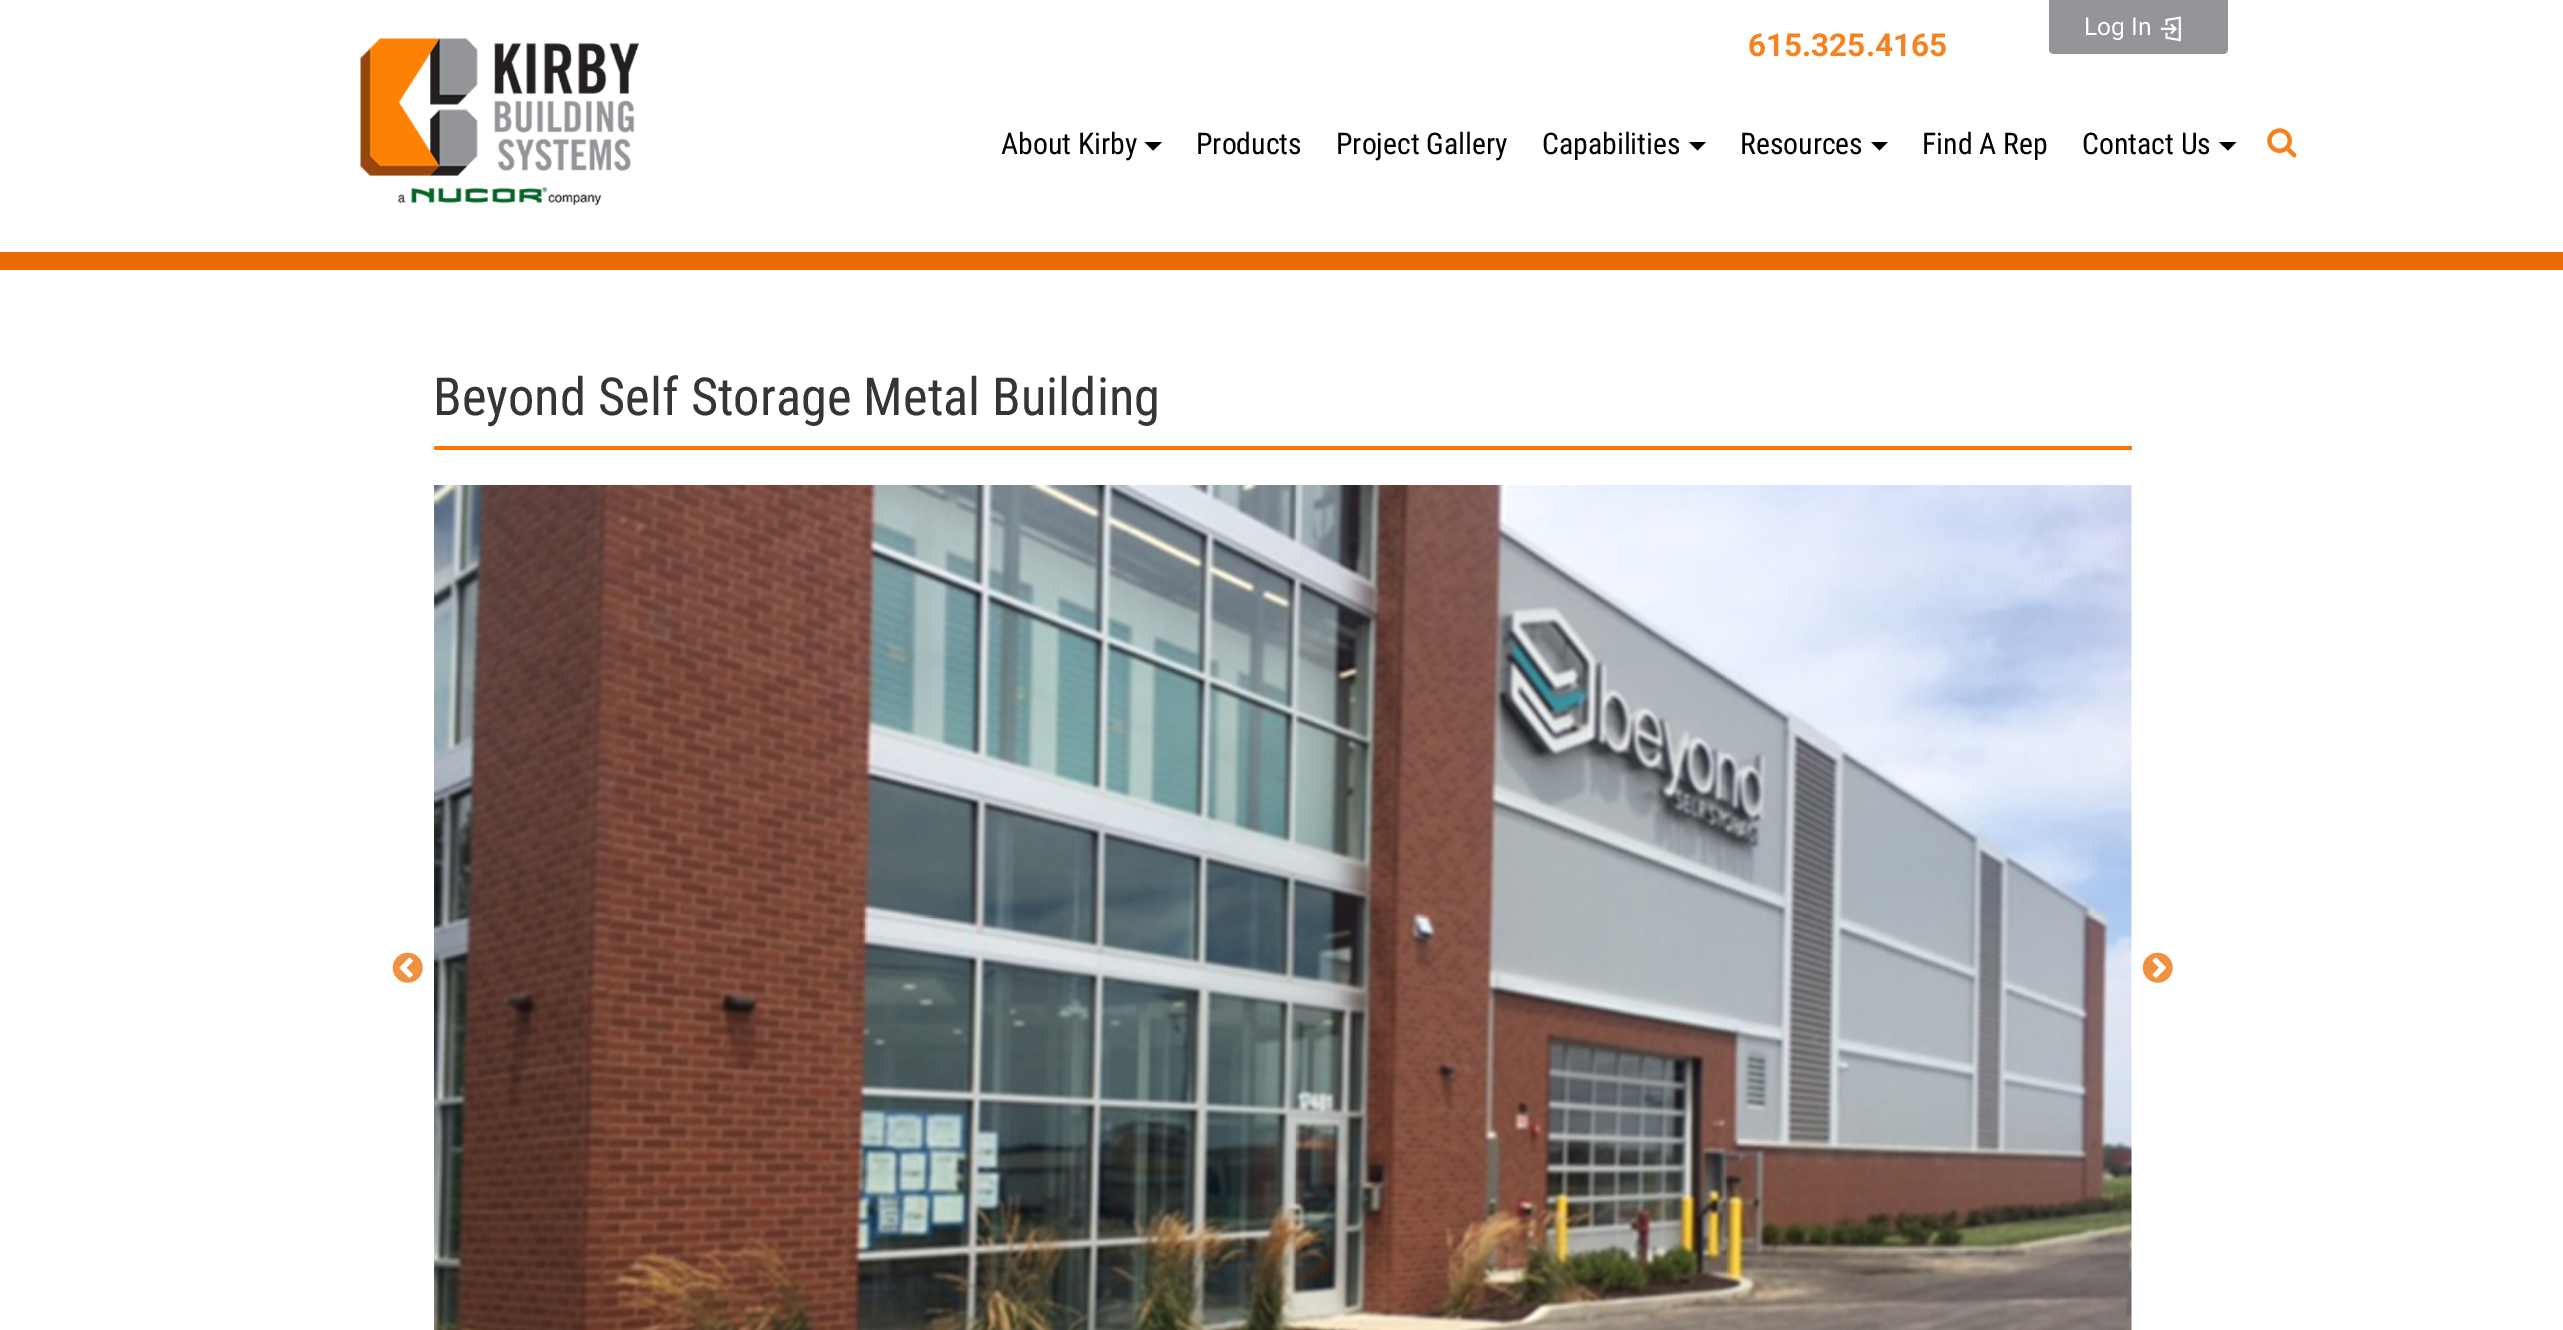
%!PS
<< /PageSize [2563 1330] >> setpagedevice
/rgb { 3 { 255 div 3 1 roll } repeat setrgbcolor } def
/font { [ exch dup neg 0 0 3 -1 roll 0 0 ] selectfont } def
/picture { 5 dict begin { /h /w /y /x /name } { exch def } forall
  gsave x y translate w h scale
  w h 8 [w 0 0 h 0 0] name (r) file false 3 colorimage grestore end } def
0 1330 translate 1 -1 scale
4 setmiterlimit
255 255 255 rgb
0 0 2563 1330 rectfill
147 149 152 rgb
2049 0 moveto 2228 0 lineto 2228 49 lineto 2228 52 2226 54 2223 54 curveto 2054 54 lineto 2051 54 2049 52 2049 49 curveto closepath fill
(img/1.rgb) 2160 16 21 26 picture
(img/2.rgb) 360 38 279 167 picture
(img/3.rgb) 2267 128 30 30 picture
0 0 0 rgb
1144.5 142 moveto 1162 142 lineto 1153 150.5 lineto closepath fill
1689 142 moveto 1706 142 lineto 1697.5 150.5 lineto closepath fill
1871 142 moveto 1888 142 lineto 1879.5 150.5 lineto closepath fill
2219 142 moveto 2236.5 142 lineto 2228 150.5 lineto closepath fill
233 108 0 rgb
0 252 2563 18 rectfill
254 118 10 rgb
434 446 1698 4 rectfill
(img/4.rgb) 392 952 31 31 picture
(img/5.rgb) 434 485 1698 845 picture
(img/6.rgb) 2142 952 31 31 picture
/Roboto-Regular 24.5 font
255 255 255 rgb
2084 35 moveto (Log In) show
/Roboto-Bold 31.5 font
245 130 31 rgb
1748 56 moveto (615.325.4165) show
/RobotoCondensed-Regular 29.75 font
0 0 0 rgb
[
  [(About Kirby) 1001 154]
  [(Products) 1196 154]
  [(Project Gallery) 1336 154]
  [(Capabilities) 1542 154]
  [(Resources) 1740 154]
  [(Find A Rep) 1922 154]
  [(Contact Us) 2082 154]
] { aload pop moveto show } forall
/RobotoCondensed-Regular 52.5 font
50 54 55 rgb
433 415 moveto (Beyond Self Storage Metal Building) show
showpage
